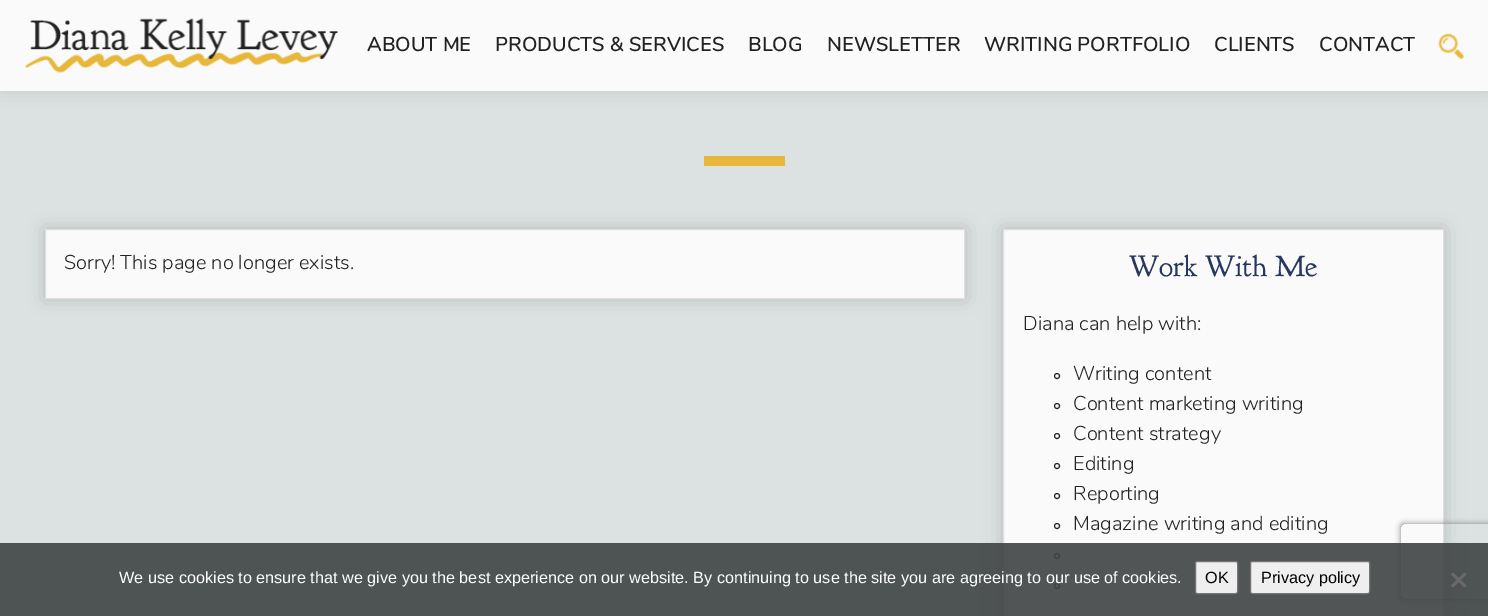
%!PS
<< /PageSize [1488 616] /PageUsesTransparency true >> setpagedevice
/rgb { 3 { 255 div 3 1 roll } repeat setrgbcolor } def
/font { [ exch dup neg 0 0 3 -1 roll 0 0 ] selectfont } def
/alpha { dup .setfillconstantalpha .setstrokeconstantalpha } def
/circle { newpath 0 360 arc closepath } def
/roundrect { 5 dict begin { /r /h /w /y /x } { exch def } forall
  x r add y moveto x w add y 2 copy h add r arct x w add y h add x 1 index r arct
  x y h add x y r arct x y 2 copy exch w add exch r arct closepath end } def
/shadow { 12 dict begin { /a /b /q /h /w /y /x } { exch def } forall gsave /was 0 def
  9 -2 -9 { dup b mul 4 div /e exch def 1 sub .425 mul 2.718 exch exp 1 add a .99 .min exch div /now exch def
    1 1 now sub 1 was sub div sub alpha /was now def
    w h .min e 2 mul add 0 gt { x e sub y e sub w e 2 mul add h e 2 mul add
      q e add b .6 mul add w h .min 2 div e add .min 0 .max roundrect fill } if } for grestore end } def
/picture { 5 dict begin { /h /w /y /x /name } { exch def } forall
  gsave x y translate w h scale
  w h 8 [w 0 0 h 0 0] name (r) file false 3 colorimage grestore end } def
0 .pushpdf14devicefilter
0 616 translate 1 -1 scale
4 setmiterlimit
220 226 226 rgb
0 0 1488 616 rectfill
0 0 0 rgb
0 0 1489 91 0 9.5 0.1 shadow
250 250 250 rgb
0 0 1488 91 rectfill
(img/1.rgb) 25 18 313 55 picture
(img/2.rgb) 1438 33 26 27 picture
232 182 56 rgb
704 156 81 10 rectfill
144 148 148 rgb
45 229 920 70 0 9.5 0.5 shadow
250 250 250 rgb
45.5 229.5 moveto 964.5 229.5 lineto 964.5 298.5 lineto 45.5 298.5 lineto closepath gsave fill grestore
223 223 223 rgb
stroke
144 148 148 rgb
1003 229 441 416 0 9.5 0.5 shadow
250 250 250 rgb
1003.5 229.5 moveto 1443.5 229.5 lineto 1443.5 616.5 lineto 1003.5 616.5 lineto closepath gsave fill grestore
223 223 223 rgb
stroke
34 34 34 rgb
1057 376 2.5 circle stroke
1057 406 2.5 circle stroke
1057 436 2.5 circle stroke
1057 466 2.5 circle stroke
1057 496 2.5 circle stroke
1057 526 2.5 circle stroke
1057 556 2.5 circle stroke
1057 586 2.5 circle stroke
gsave
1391 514 moveto 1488 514 lineto 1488 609 lineto 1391 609 lineto closepath 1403.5 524 moveto 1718.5 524 lineto 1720 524 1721 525 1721 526.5 curveto 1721 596.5 lineto 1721 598 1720 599 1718.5 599 curveto 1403.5 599 lineto 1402 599 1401 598 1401 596.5 curveto 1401 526.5 lineto 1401 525 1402 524 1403.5 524 curveto closepath eoclip newpath
128 128 128 rgb
1401 524 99 75 2.5 3 1 shadow
grestore
0.9 alpha
63 67 68 rgb
0 543 1488 73 rectfill
1 alpha
239 239 239 rgb
1195.5 561.5 42 32 2 roundrect gsave fill grestore
118 118 118 rgb
stroke
239 239 239 rgb
1250.5 561.5 119 32 2 roundrect gsave fill grestore
118 118 118 rgb
stroke
103 105 106 rgb
1464.5 572.5 moveto 1466.5 574.5 lineto 1453 587.5 lineto 1451 585.5 lineto closepath fill
1451 574.5 moveto 1453 572.5 lineto 1466.5 585.5 lineto 1464.5 587.5 lineto closepath fill
/Nunito-SemiBold 20 font
34 34 34 rgb
[
  [(ABOUT ME) 367 51]
  [(PRODUCTS & SERVICES) 495 51]
  [(BLOG) 748 51]
  [(NEWSLETTER) 827 51]
  [(WRITING PORTFOLIO) 984 51]
  [(CLIENTS) 1214 51]
  [(CONTACT) 1319 51]
] { aload pop moveto show } forall
/Nunito-Light 20 font
64 269 moveto (Sorry! This page no longer exists.) show
/GoudyBookletter1911-Regular 30 font
39 56 96 rgb
1129 276 moveto (Work With Me) show
/Nunito-Light 20 font
34 34 34 rgb
[
  [(Diana can help with:) 1023 330]
  [(Writing content) 1073 380]
  [(Content marketing writing) 1073 410]
  [(Content strategy) 1073 440]
  [(Editing) 1073 470]
  [(Reporting) 1073 500]
  [(Magazine writing and editing) 1073 530]
] { aload pop moveto show } forall
/LiberationSans-Regular 16.25 font
255 255 255 rgb
119 583 moveto (We use cookies to ensure that we give you the best experience on our website. By continuing to use the site you are agreeing to our use of cookies.) show
0 0 0 rgb
1205 583 moveto (OK) show
1261 583 moveto (Privacy policy) show
.poppdf14devicefilter showpage
